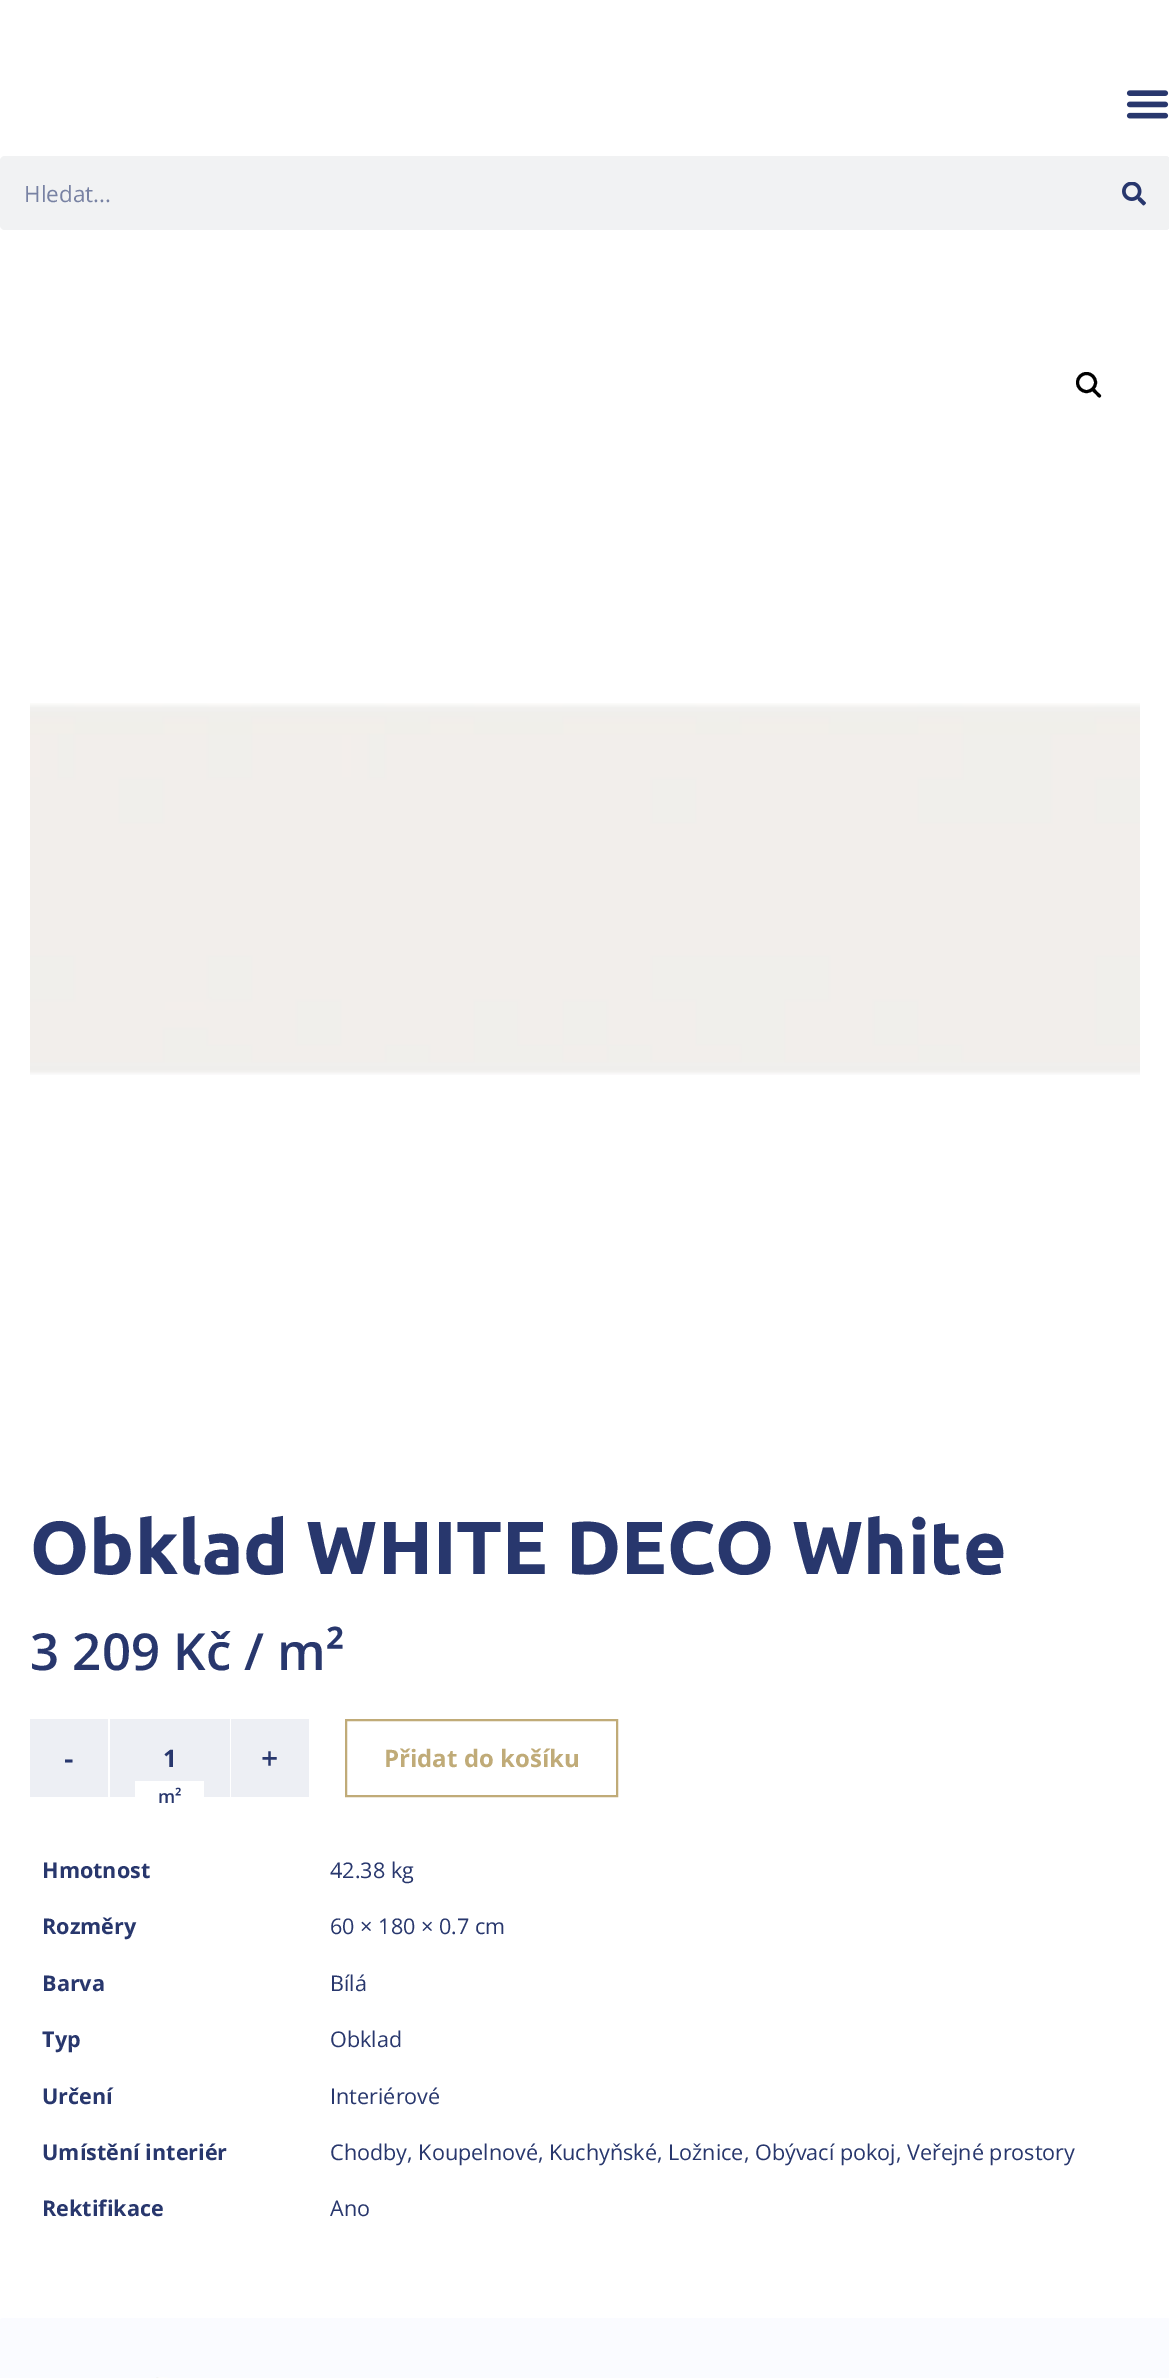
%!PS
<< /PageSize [1169 2378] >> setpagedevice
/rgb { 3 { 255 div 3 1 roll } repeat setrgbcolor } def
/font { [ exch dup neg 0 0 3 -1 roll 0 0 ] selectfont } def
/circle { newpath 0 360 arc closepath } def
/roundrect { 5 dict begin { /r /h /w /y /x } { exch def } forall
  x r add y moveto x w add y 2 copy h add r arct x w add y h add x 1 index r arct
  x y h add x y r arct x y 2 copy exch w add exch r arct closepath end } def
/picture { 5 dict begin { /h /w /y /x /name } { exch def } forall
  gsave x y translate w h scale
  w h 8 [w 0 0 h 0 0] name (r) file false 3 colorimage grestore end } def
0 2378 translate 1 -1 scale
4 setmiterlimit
255 255 255 rgb
0 0 1169 2378 rectfill
(img/1.rgb) 1126 90 43 29 picture
241 242 243 rgb
0 156 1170 74 5 roundrect fill
1097 156 moveto 1165 156 lineto 1168 156 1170 158 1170 161 curveto 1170 225 lineto 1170 228 1168 230 1165 230 curveto 1097 230 lineto closepath fill
(img/2.rgb) 1122 182 24 24 picture
0 0 0 rgb
3 setlinewidth
1086.5 382.5 9 circle stroke
1092.5 389 moveto 1094 387 1096.5 391 1097.5 392 curveto 1098.5 393 1102.5 395.5 1100.5 397 curveto 1099 399 1096.5 395 1095.5 394 curveto 1094.5 393 1090.5 390.5 1092.5 389 curveto closepath fill
(img/3.rgb) 30 703 1110 372 picture
[
  [30 1719 78 78 237 239 244]
  [110 1719 120 78 237 239 244]
  [231 1719 78 78 237 239 244]
  [135 1781 69 16 255 255 255]
] { aload pop rgb rectfill } forall
192 171 120 rgb
2 setlinewidth
346 1720 271 76 rectstroke
250 251 255 rgb
3 2318 moveto 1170 2318 lineto 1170 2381 lineto 0 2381 lineto 0 2321 lineto 0 2319.5 1.5 2318 3 2318 curveto closepath fill
(img/4.rgb) 156 2377 11 1 picture
/OpenSans-Regular 22.5 font
120 130 163 rgb
24 202 moveto (Hledat...) show
/Ubuntu-Bold 75 font
40 55 109 rgb
30 1574 moveto (Obklad WHITE DECO White) show
/OpenSans-SemiBold 51 font
30 1670 moveto (3 209 Kč / m²) show
/OpenSans-SemiBold 30 font
64 1769 moveto (-) show
/OpenSans-Bold 24 font
163 1767 moveto (1) show
/OpenSans-SemiBold 30 font
261 1769 moveto (+) show
/OpenSans-SemiBold 18 font
158 1803 moveto (m²) show
/OpenSans-Bold 24 font
192 171 120 rgb
384 1767 moveto (Přidat do košíku) show
/OpenSans-Bold 21.6 font
40 55 109 rgb
42 1878 moveto (Hmotnost) show
/OpenSans-Regular 21.6 font
330 1878 moveto (42.38 kg) show
/OpenSans-Bold 21.6 font
42 1934 moveto (Rozměry) show
/OpenSans-Regular 21.6 font
330 1934 moveto (60 × 180 × 0.7 cm) show
/OpenSans-Bold 21.6 font
42 1991 moveto (Barva) show
/OpenSans-Regular 21.6 font
330 1991 moveto (Bílá) show
/OpenSans-Bold 21.6 font
42 2047 moveto (Typ) show
/OpenSans-Regular 21.6 font
330 2047 moveto (Obklad) show
/OpenSans-Bold 21.6 font
42 2104 moveto (Určení) show
/OpenSans-Regular 21.6 font
330 2104 moveto (Interiérové) show
/OpenSans-Bold 21.6 font
42 2160 moveto (Umístění interiér) show
/OpenSans-Regular 21.6 font
330 2160 moveto (Chodby, Koupelnové, Kuchyňské, Ložnice, Obývací pokoj, Veřejné prostory) show
/OpenSans-Bold 21.6 font
42 2216 moveto (Rektifikace) show
/OpenSans-Regular 21.6 font
330 2216 moveto (Ano) show
showpage
